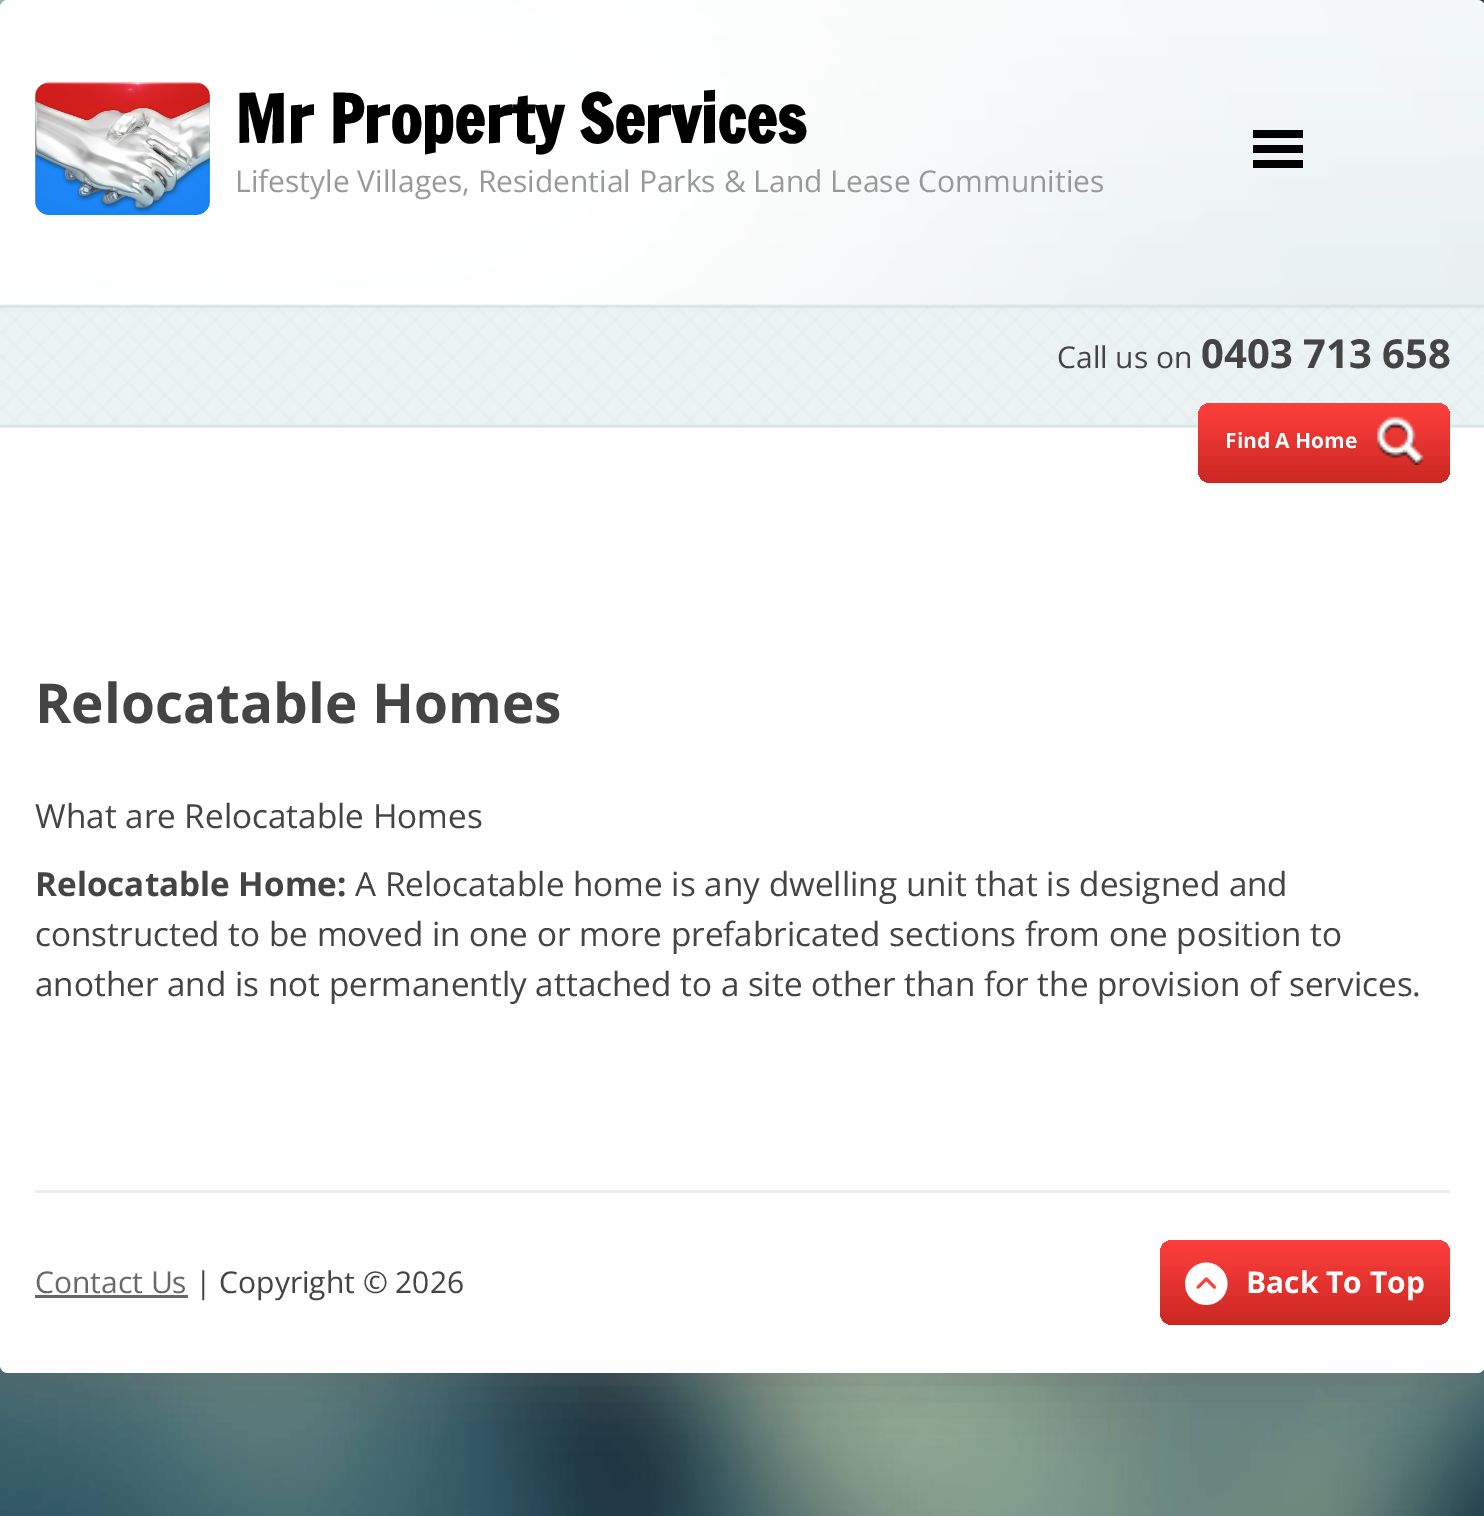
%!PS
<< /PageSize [1484 1516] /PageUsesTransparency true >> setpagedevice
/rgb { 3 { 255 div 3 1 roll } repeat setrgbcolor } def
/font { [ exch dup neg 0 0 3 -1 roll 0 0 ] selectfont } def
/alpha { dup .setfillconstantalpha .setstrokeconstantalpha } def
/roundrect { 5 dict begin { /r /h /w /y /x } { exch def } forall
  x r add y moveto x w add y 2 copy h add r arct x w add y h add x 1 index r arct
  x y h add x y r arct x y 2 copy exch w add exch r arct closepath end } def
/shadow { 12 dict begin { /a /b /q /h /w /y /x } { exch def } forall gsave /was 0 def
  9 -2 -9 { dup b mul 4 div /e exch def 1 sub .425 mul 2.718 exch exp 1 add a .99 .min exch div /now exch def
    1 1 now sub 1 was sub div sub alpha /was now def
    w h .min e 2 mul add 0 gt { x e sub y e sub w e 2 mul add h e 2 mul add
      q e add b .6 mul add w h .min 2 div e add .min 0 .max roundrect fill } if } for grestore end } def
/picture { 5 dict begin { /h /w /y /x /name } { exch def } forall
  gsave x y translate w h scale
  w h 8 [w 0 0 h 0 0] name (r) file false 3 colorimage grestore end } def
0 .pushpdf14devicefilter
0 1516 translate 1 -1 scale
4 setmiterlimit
255 255 255 rgb
0 0 1484 1516 rectfill
(img/1.rgb) 0 0 1484 1516 picture
100 100 100 rgb
0 5 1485 1373 8 32.5 0.5 shadow
255 255 255 rgb
0 0 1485 1373 8 roundrect fill
(img/2.rgb) 0 0 1484 428 picture
(img/3.rgb) 35 82 175 133 picture
[
  [1253 130 50 8 0 0 0]
  [1253 145 50 8 0 0 0]
  [1253 160 50 8 0 0 0]
] { aload pop rgb rectfill } forall
gsave 1198 403 252 80 13 roundrect clip newpath
<< /ShadingType 2 /ColorSpace /DeviceRGB /Coords [1324 403 1324 483] /Extend [true true] /Function << /FunctionType 2 /Domain [0 1] /C0 [1 0.247 0.231] /C1 [0.796 0.153 0.137] /N 1 >> >> shfill grestore
(img/4.rgb) 1376 416 48 49 picture
237 237 237 rgb
35 1190 1415 3 rectfill
104 104 104 rgb
35 1295 153 3 rectfill
gsave 1160 1240 290 85 13 roundrect clip newpath
<< /ShadingType 2 /ColorSpace /DeviceRGB /Coords [1305 1240 1305 1325] /Extend [true true] /Function << /FunctionType 2 /Domain [0 1] /C0 [1 0.247 0.231] /C1 [0.796 0.153 0.137] /N 1 >> >> shfill grestore
(img/5.rgb) 1185 1262 43 43 picture
/FrancoisOne-Bold 65 font
0 0 0 rgb
235 143 moveto (Mr Property Services) show
/OpenSans-Regular 30 font
153 153 153 rgb
235 192 moveto (Lifestyle Villages, Residential Parks & Land Lease Communities) show
68 68 68 rgb
1057 368 moveto (Call us on) show
/OpenSans-Bold 40 font
1201 368 moveto (0403 713 658) show
/OpenSans-Bold 21 font
255 255 255 rgb
1225 448 moveto (Find A Home) show
/OpenSans-Bold 55 font
68 68 68 rgb
35 723 moveto (Relocatable Homes) show
/OpenSans-Regular 33.25 font
35 828 moveto (What are Relocatable Homes) show
/OpenSans-Bold 33.25 font
35 896 moveto (Relocatable Home:) show
/OpenSans-Regular 33.25 font
[
  [(A Relocatable home is any dwelling unit that is designed and) 355 896]
  [(constructed to be moved in one or more prefabricated sections from one position to) 35 946]
  [(another and is not permanently attached to a site other than for the provision of services.) 35 996]
] { aload pop moveto show } forall
/OpenSans-Regular 30 font
104 104 104 rgb
35 1293 moveto (Contact Us) show
68 68 68 rgb
195 1293 moveto (| Copyright © 2026) show
/OpenSans-Bold 30 font
255 255 255 rgb
1246 1293 moveto (Back To Top) show
.poppdf14devicefilter showpage
